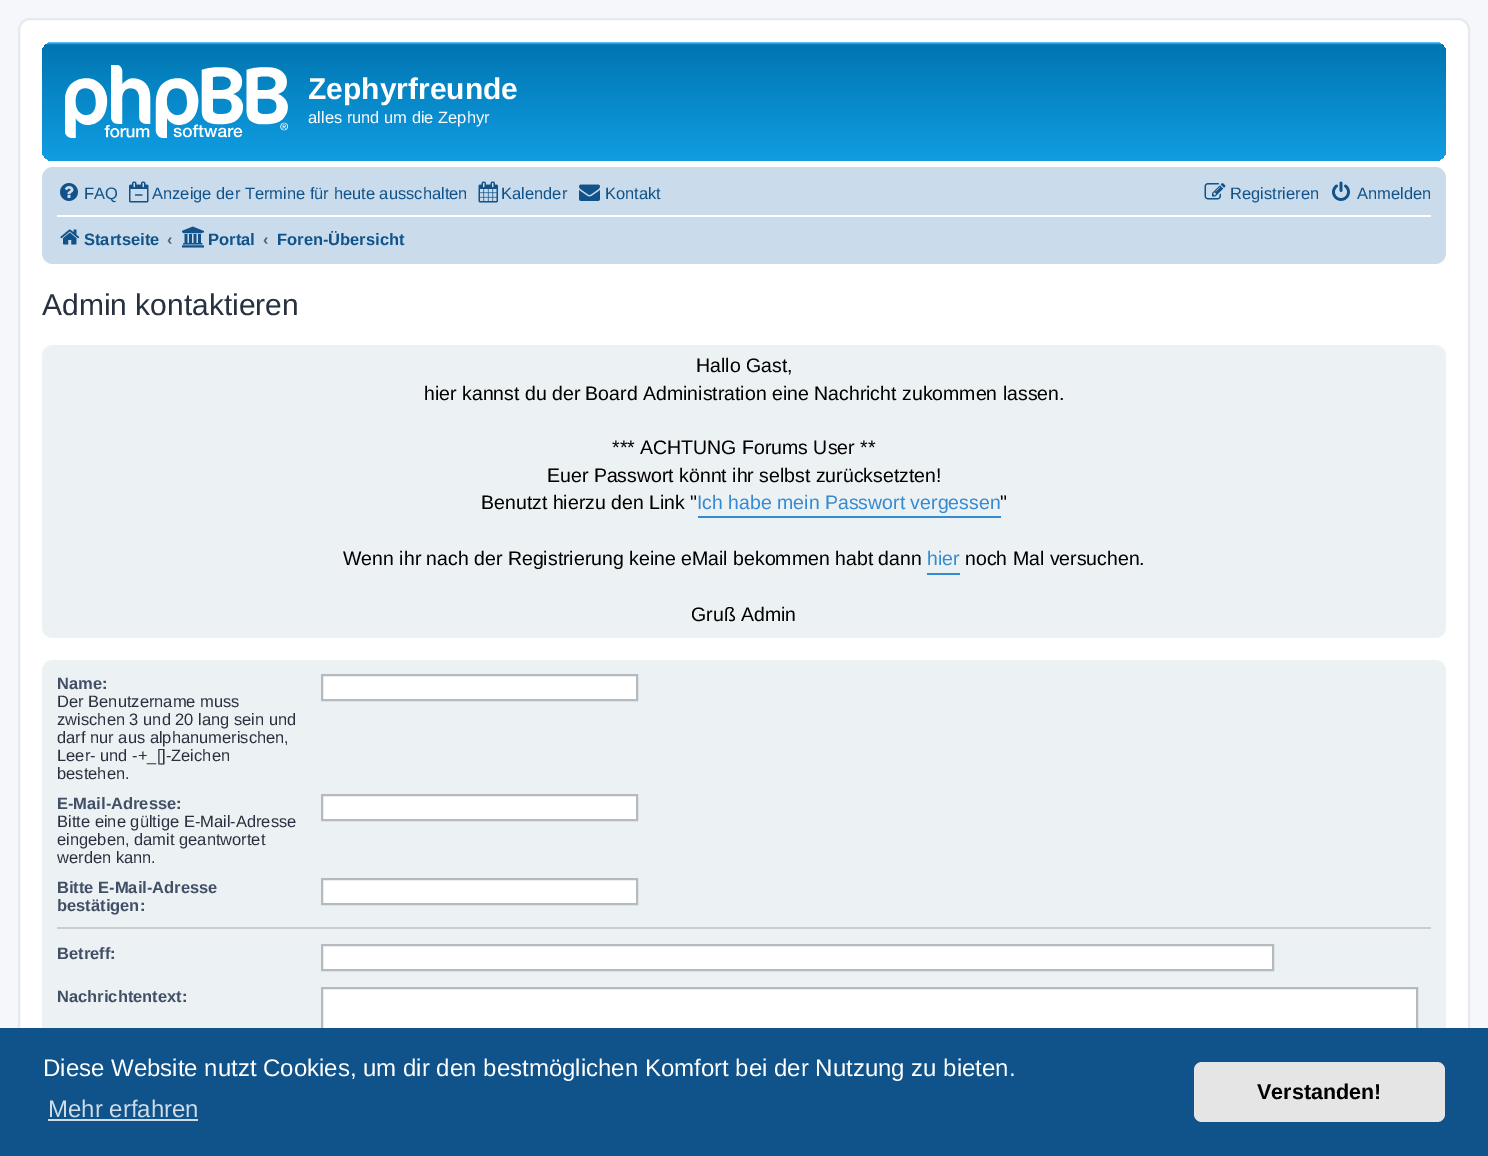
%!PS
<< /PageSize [1488 1156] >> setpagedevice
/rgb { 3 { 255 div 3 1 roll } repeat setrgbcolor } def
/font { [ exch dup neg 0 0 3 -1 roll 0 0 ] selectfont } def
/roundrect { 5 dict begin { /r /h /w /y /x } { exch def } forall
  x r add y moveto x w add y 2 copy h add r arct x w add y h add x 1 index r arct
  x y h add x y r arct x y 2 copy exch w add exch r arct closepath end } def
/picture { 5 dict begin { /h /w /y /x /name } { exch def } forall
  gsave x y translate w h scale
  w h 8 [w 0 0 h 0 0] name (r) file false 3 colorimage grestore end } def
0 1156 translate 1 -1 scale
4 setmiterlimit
245 247 250 rgb
0 0 1488 1156 rectfill
255 255 255 rgb
19 19 1450 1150 11 roundrect gsave fill grestore
230 233 237 rgb
2 setlinewidth
stroke
gsave 42 42 1404 119 11 roundrect clip newpath
<< /ShadingType 2 /ColorSpace /DeviceRGB /Coords [744 42 744 180] /Extend [true true] /Function << /FunctionType 3 /Domain [0 1] /Functions [<< /FunctionType 2 /Domain [0 1] /C0 [0.416 0.808 1] /C1 [0 0.463 0.694] /N 1 >> << /FunctionType 2 /Domain [0 1] /C0 [0 0.463 0.694] /C1 [0.071 0.639 0.922] /N 1 >>] /Bounds [0.02] /Encode [0 1 0 1] >> >> shfill grestore
(img/1.rgb) 65 65 223 73 picture
202 220 235 rgb
42 167 1404 97 11 roundrect fill
(img/2.rgb) 60 183 18 18 picture
(img/3.rgb) 129 181 20 22 picture
(img/4.rgb) 478 181 20 22 picture
(img/5.rgb) 579 184 21 17 picture
(img/6.rgb) 1204 183 22 17 picture
(img/7.rgb) 1332 181 18 20 picture
255 255 255 rgb
57 215 1374 2 rectfill
(img/8.rgb) 60 229 20 16 picture
(img/9.rgb) 182 226 22 22 picture
236 241 243 rgb
42 345 1404 293 11 roundrect fill
54 138 210 rgb
698 516 303 2 rectfill
927 573 33 2 rectfill
236 241 243 rgb
42 660 1404 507 11 roundrect fill
255 255 255 rgb
322 675 moveto 637 675 lineto 637 700 lineto 322 700 lineto closepath gsave fill grestore
180 186 192 rgb
stroke
255 255 255 rgb
322 795 moveto 637 795 lineto 637 820 lineto 322 820 lineto closepath gsave fill grestore
180 186 192 rgb
stroke
255 255 255 rgb
322 879 moveto 637 879 lineto 637 904 lineto 322 904 lineto closepath gsave fill grestore
180 186 192 rgb
stroke
204 204 204 rgb
57 927 1374 2 rectfill
255 255 255 rgb
322 945 moveto 1273 945 lineto 1273 970 lineto 322 970 lineto closepath gsave fill grestore
180 186 192 rgb
stroke
255 255 255 rgb
323 989 1093 39 rectfill
180 186 192 rgb
322 988 1095 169 rectstroke
15 83 138 rgb
0 1028 1488 128 rectfill
207 221 232 rgb
48 1119 150 2 rectfill
229 229 229 rgb
1194 1062 251 60 8 roundrect fill
/LiberationSans-Bold 30 font
255 255 255 rgb
308 99 moveto (Zephyrfreunde) show
/LiberationSans-Regular 16.5 font
308 123 moveto (alles rund um die Zephyr) show
16 82 137 rgb
[
  [(FAQ) 84 199]
  [(Anzeige der Termine für heute ausschalten) 152 199]
  [(Kalender) 501 199]
  [(Kontakt) 605 199]
  [(Registrieren) 1230 199]
  [(Anmelden) 1357 199]
] { aload pop moveto show } forall
/LiberationSans-Bold 16.5 font
84 245 moveto (Startseite) show
83 100 130 rgb
167 245 moveto (‹) show
16 82 137 rgb
208 245 moveto (Portal) show
83 100 130 rgb
263 245 moveto (‹) show
16 82 137 rgb
277 245 moveto (Foren-Übersicht) show
/LiberationSans-Regular 30 font
40 49 63 rgb
42 315 moveto (Admin kontaktieren) show
/LiberationSans-Regular 19.5 font
0 0 0 rgb
[
  [(Hallo Gast,) 696 372]
  [(hier kannst du der Board Administration eine Nachricht zukommen lassen.) 424 400]
  [(*** ACHTUNG Forums User **) 612 454]
  [(Euer Passwort könnt ihr selbst zurücksetzten!) 547 482]
  [(Benutzt hierzu den Link ") 481 509]
] { aload pop moveto show } forall
54 138 210 rgb
697 509 moveto (Ich habe mein Passwort vergessen) show
0 0 0 rgb
1000 509 moveto (") show
343 565 moveto (Wenn ihr nach der Registrierung keine eMail bekommen habt dann) show
54 138 210 rgb
927 565 moveto (hier) show
0 0 0 rgb
965 565 moveto (noch Mal versuchen.) show
691 621 moveto (Gruß Admin) show
/LiberationSans-Bold 16.5 font
66 80 103 rgb
57 689 moveto (Name:) show
/LiberationSans-Regular 16.5 font
40 49 63 rgb
[
  [(Der Benutzername muss) 57 707]
  [(zwischen 3 und 20 lang sein und) 57 725]
  [(darf nur aus alphanumerischen,) 57 743]
  [(Leer- und -+_[]-Zeichen) 57 761]
  [(bestehen.) 57 779]
] { aload pop moveto show } forall
/LiberationSans-Bold 16.5 font
66 80 103 rgb
57 809 moveto (E-Mail-Adresse:) show
/LiberationSans-Regular 16.5 font
40 49 63 rgb
[
  [(Bitte eine gültige E-Mail-Adresse) 57 827]
  [(eingeben, damit geantwortet) 57 845]
  [(werden kann.) 57 863]
] { aload pop moveto show } forall
/LiberationSans-Bold 16.5 font
66 80 103 rgb
[
  [(Bitte E-Mail-Adresse) 57 893]
  [(bestätigen:) 57 911]
  [(Betreff:) 57 959]
  [(Nachrichtentext:) 57 1002]
] { aload pop moveto show } forall
/LiberationSans-Regular 24 font
255 255 255 rgb
43 1076 moveto (Diese Website nutzt Cookies, um dir den bestmöglichen Komfort bei der Nutzung zu bieten.) show
207 221 232 rgb
48 1117 moveto (Mehr erfahren) show
/LiberationSans-Bold 21.5 font
0 0 0 rgb
1257 1099 moveto (Verstanden!) show
showpage
